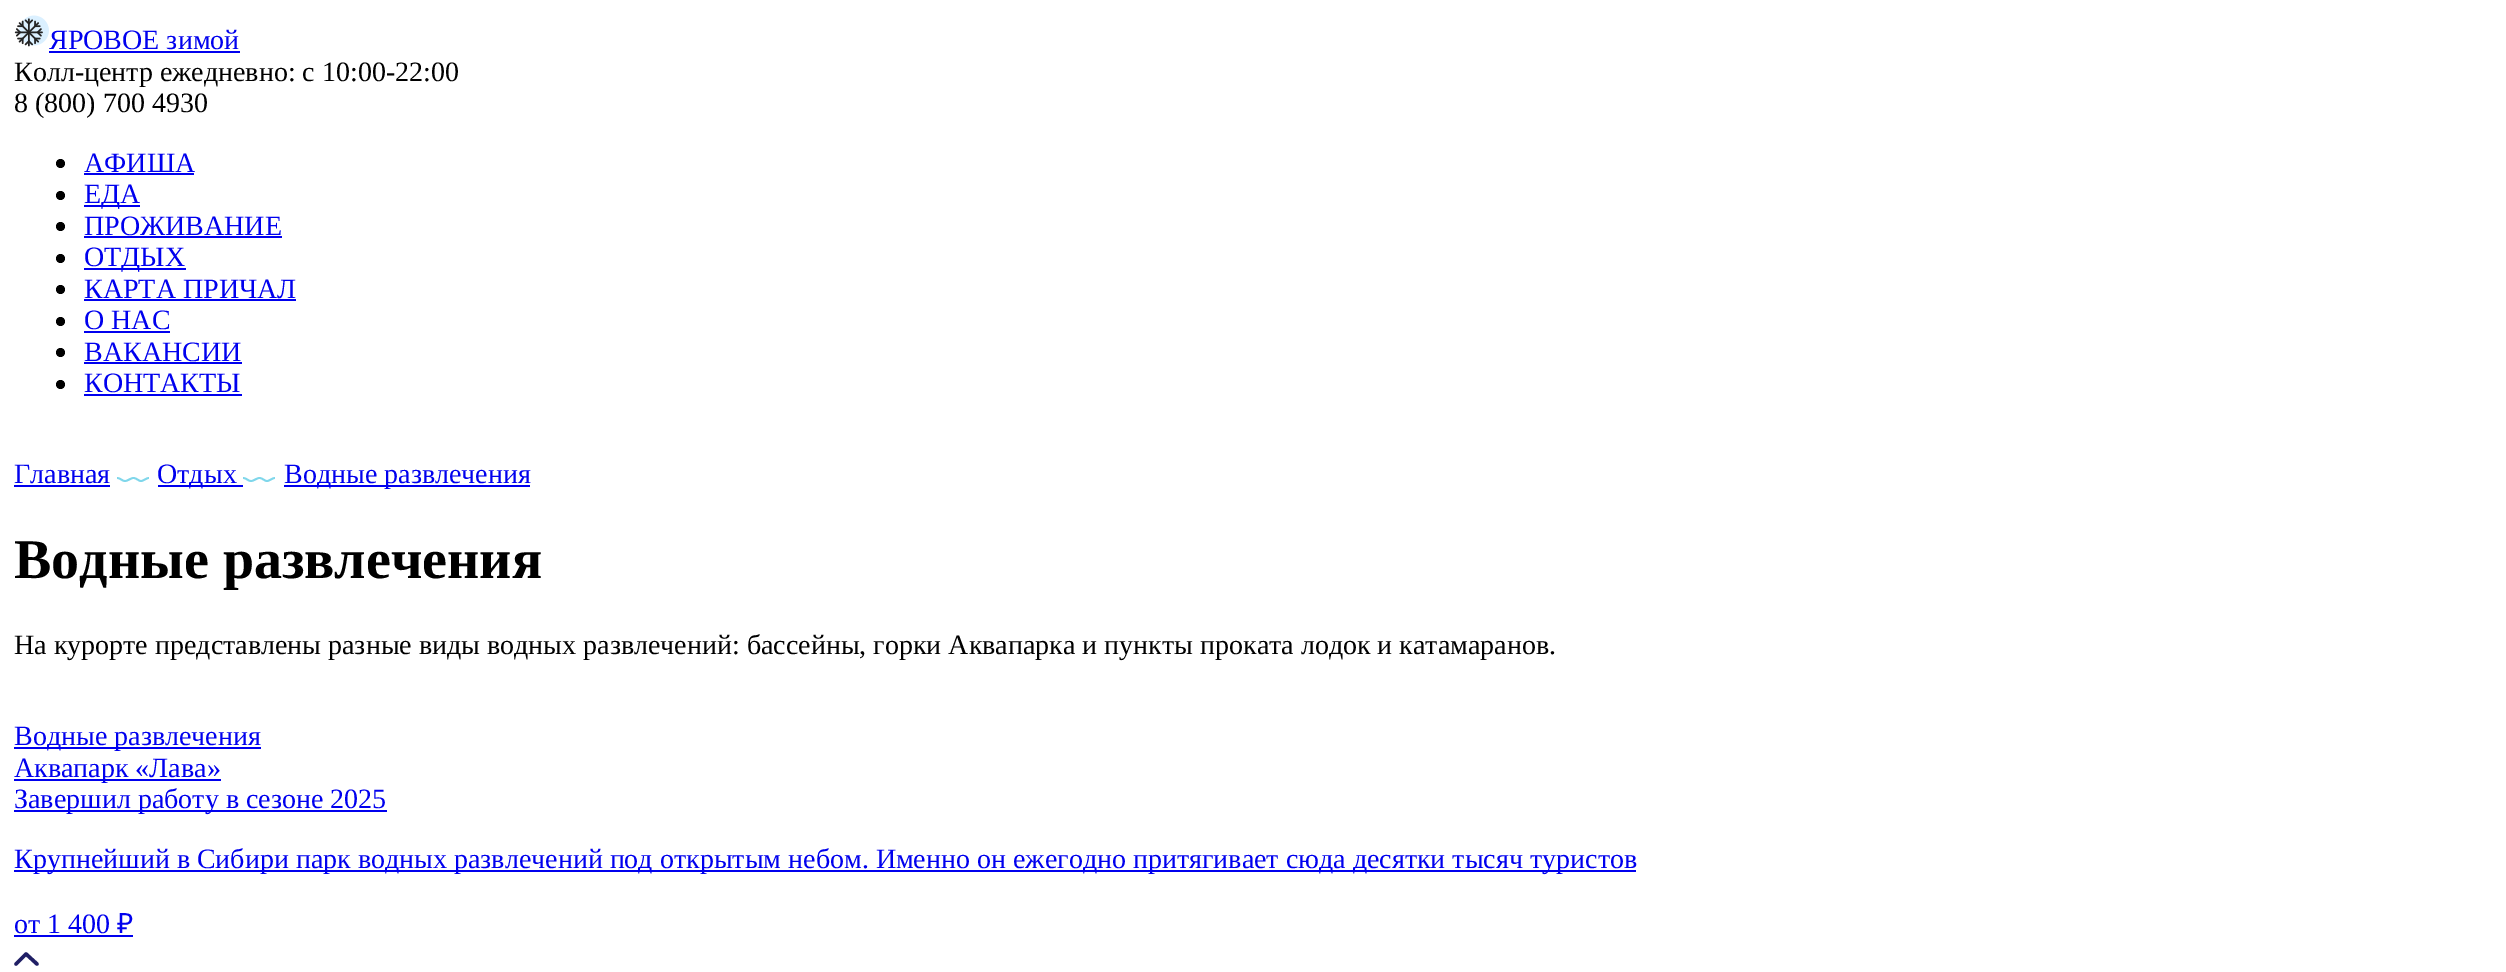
%!PS
<< /PageSize [2506 972] >> setpagedevice
/rgb { 3 { 255 div 3 1 roll } repeat setrgbcolor } def
/font { [ exch dup neg 0 0 3 -1 roll 0 0 ] selectfont } def
/circle { newpath 0 360 arc closepath } def
/picture { 5 dict begin { /h /w /y /x /name } { exch def } forall
  gsave x y translate w h scale
  w h 8 [w 0 0 h 0 0] name (r) file false 3 colorimage grestore end } def
0 972 translate 1 -1 scale
4 setmiterlimit
255 255 255 rgb
0 0 2506 972 rectfill
(img/1.rgb) 14 15 35 32 picture
0 0 238 rgb
49 51 191 2 rectfill
0 0 0 rgb
60.5 163.5 4.5 circle fill
0 0 238 rgb
84 173 110 2 rectfill
0 0 0 rgb
60.5 195.5 4.5 circle fill
0 0 238 rgb
84 205 56 2 rectfill
0 0 0 rgb
60.5 226.5 4.5 circle fill
0 0 238 rgb
84 236 198 2 rectfill
0 0 0 rgb
60.5 258.5 4.5 circle fill
0 0 238 rgb
84 268 102 2 rectfill
0 0 0 rgb
60.5 289.5 4.5 circle fill
0 0 238 rgb
84 299 212 2 rectfill
0 0 0 rgb
60.5 321.5 4.5 circle fill
0 0 238 rgb
84 331 86 2 rectfill
0 0 0 rgb
60.5 352.5 4.5 circle fill
0 0 238 rgb
84 362 158 2 rectfill
0 0 0 rgb
60.5 384.5 4.5 circle fill
0 0 238 rgb
84 394 158 2 rectfill
14 485 96 2 rectfill
128 215 235 rgb
1.8 setlinewidth
117 478 moveto 120.5 478 122 481 125 481 curveto 128 481 130.5 478 133.5 478 curveto 136.5 478 138.5 481 141 481 curveto 143.5 481 146 478 149 478 curveto stroke
0 0 238 rgb
158 485 85 2 rectfill
128 215 235 rgb
243 478 moveto 246.5 478 248 481 251 481 curveto 254 481 256.5 478 259.5 478 curveto 262.5 478 264.5 481 267 481 curveto 269.5 481 272 478 275 478 curveto stroke
[
  [284 485 246 2 0 0 238]
  [14 747 247 2 0 0 238]
  [14 779 207 2 0 0 238]
  [14 810 373 2 0 0 238]
  [14 870 1622 2 0 0 238]
  [14 935 119 2 0 0 238]
] { aload pop rgb rectfill } forall
32 31 101 rgb
3.5 setlinewidth
1 setlinecap
1 setlinejoin
16 964 moveto 26 954 lineto 37 964 lineto stroke
/LiberationSerif-Regular 28 font
0 0 238 rgb
49 49 moveto (ЯРОВОЕ зимой) show
0 0 0 rgb
14 81 moveto (Колл-центр ежедневно: с 10:00-22:00) show
14 112 moveto (8 \(800\) 700 4930) show
0 0 238 rgb
[
  [(АФИША) 84 172]
  [(ЕДА) 84 203]
  [(ПРОЖИВАНИЕ) 84 235]
  [(ОТДЫХ) 84 266]
  [(КАРТА ПРИЧАЛ) 84 298]
  [(О НАС) 84 329]
  [(ВАКАНСИИ) 84 361]
  [(КОНТАКТЫ) 84 392]
  [(Главная) 14 483]
  [(Отдых) 157 483]
  [(Водные развлечения) 284 483]
] { aload pop moveto show } forall
/LiberationSerif-Bold 56 font
0 0 0 rgb
14 578 moveto (Водные развлечения) show
/LiberationSerif-Regular 28 font
14 654 moveto (На курорте представлены разные виды водных развлечений: бассейны, горки Аквапарка и пункты проката лодок и катамаранов.) show
0 0 238 rgb
[
  [(Водные развлечения) 14 745]
  [(Аквапарк «Лава») 14 777]
  [(Завершил работу в сезоне 2025) 14 808]
  [(Крупнейший в Сибири парк водных развлечений под открытым небом. Именно он ежегодно притягивает сюда десятки тысяч туристов) 14 868]
  [(от 1 400) 14 933]
] { aload pop moveto show } forall
/NotoSans-Regular 28 font
117 933 moveto (₽) show
showpage
